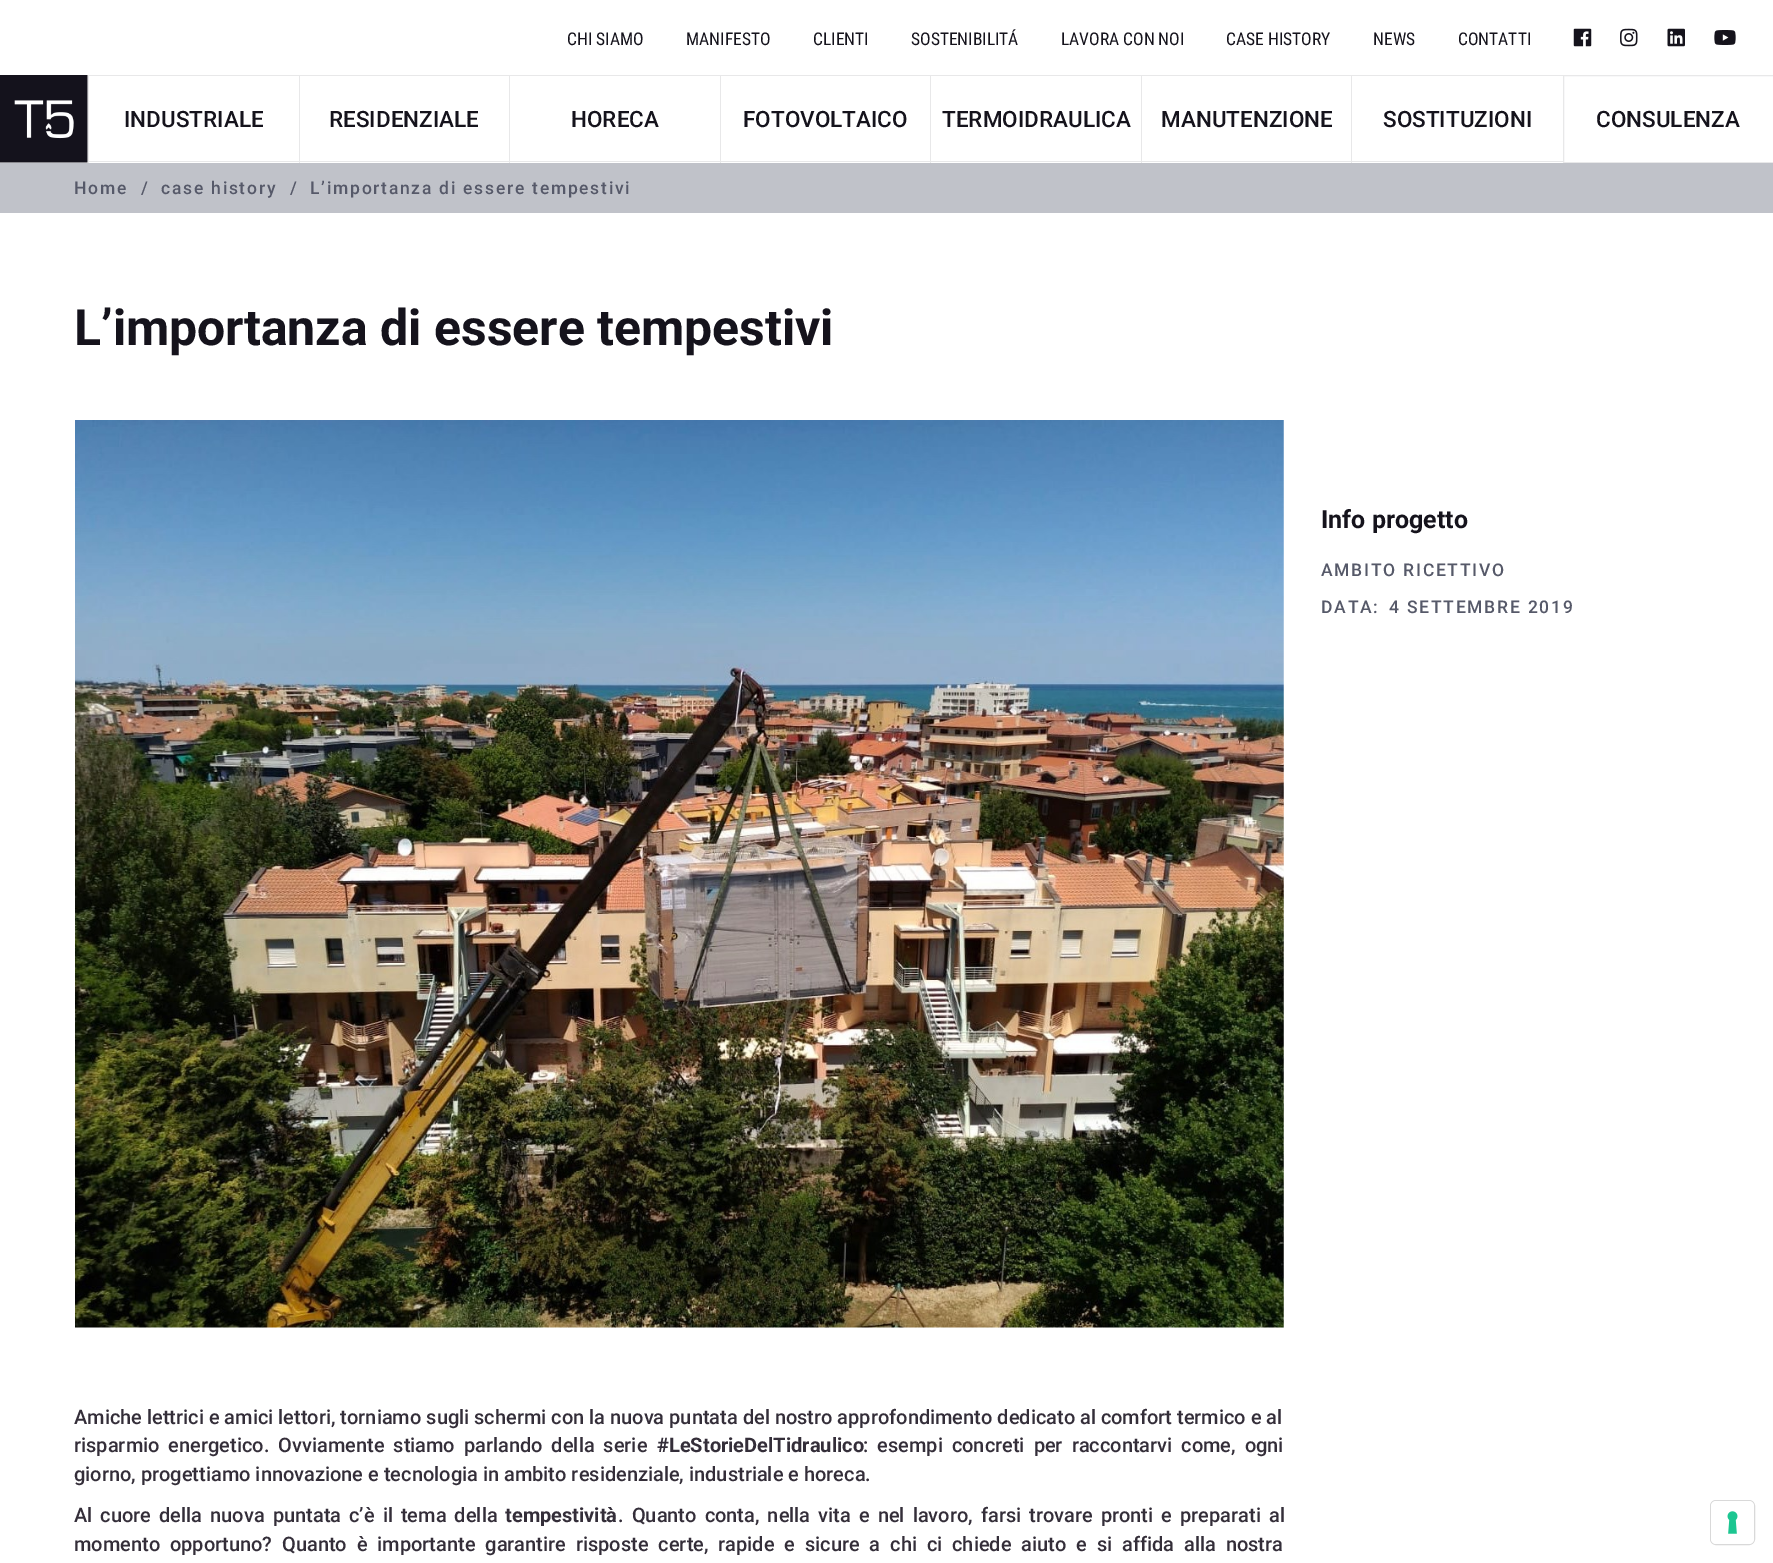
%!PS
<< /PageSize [1773 1563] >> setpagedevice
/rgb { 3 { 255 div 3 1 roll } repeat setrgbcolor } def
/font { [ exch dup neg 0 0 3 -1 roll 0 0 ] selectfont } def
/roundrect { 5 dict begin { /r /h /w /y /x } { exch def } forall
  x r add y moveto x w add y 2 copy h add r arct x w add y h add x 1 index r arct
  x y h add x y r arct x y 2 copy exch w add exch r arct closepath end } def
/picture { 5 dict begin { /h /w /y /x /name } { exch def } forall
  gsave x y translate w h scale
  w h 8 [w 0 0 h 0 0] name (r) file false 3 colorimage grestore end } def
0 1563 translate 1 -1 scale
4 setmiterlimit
255 255 255 rgb
0 0 1773 1563 rectfill
(img/1.rgb) 1573 28 19 19 picture
(img/2.rgb) 1620 28 18 19 picture
(img/3.rgb) 1667 28 18 19 picture
(img/4.rgb) 1714 30 22 15 picture
(img/5.rgb) 0 75 88 88 picture
[
  [88 75 1475 1 232 232 233]
  [88 161 1475 1 232 232 233]
  [88 75 1 88 232 232 233]
  [299 75 1 88 232 232 233]
  [509 75 1 88 232 232 233]
  [720 75 1 88 232 232 233]
  [930 75 1 88 232 232 233]
  [1141 75 1 88 232 232 233]
  [1351 75 1 88 232 232 233]
] { aload pop rgb rectfill } forall
1563.5 75.5 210 87 rectstroke
192 194 201 rgb
0 163 1773 50 rectfill
(img/6.rgb) 75 420 1209 908 picture
217 217 217 rgb
1710.5 1500.5 44 44 5.5 roundrect stroke
255 255 255 rgb
1711 1501 43 43 5 roundrect fill
(img/7.rgb) 1727 1511 11 23 picture
/RobotoCondensed-Regular 17.5 font
21 19 28 rgb
[
  [(CHI SIAMO) 567 45]
  [(MANIFESTO) 686 45]
  [(CLIENTI) 813 45]
  [(SOSTENIBILITÁ) 911 45]
  [(LAVORA CON NOI) 1061 45]
  [(CASE HISTORY) 1226 45]
  [(NEWS) 1373 45]
  [(CONTATTI) 1458 45]
] { aload pop moveto show } forall
/Roboto-Medium 22.5 font
[
  [(INDUSTRIALE) 124 127]
  [(RESIDENZIALE) 329 127]
  [(HORECA) 571 127]
  [(FOTOVOLTAICO) 743 127]
  [(TERMOIDRAULICA) 942 127]
  [(MANUTENZIONE) 1161 127]
  [(SOSTITUZIONI) 1383 127]
  [(CONSULENZA) 1596 127]
] { aload pop moveto show } forall
/Roboto-Medium 17.5 font
86 89 105 rgb
74 194 moveto 1.75 0 (Home) ashow
141 194 moveto 1.75 0 (/) ashow
161 194 moveto 1.75 0 (case history) ashow
290 194 moveto 1.75 0 (/) ashow
310 194 moveto 1.75 0 (L’importanza di essere tempestivi) ashow
/Roboto-Bold 50 font
21 19 28 rgb
74 345 moveto (L’importanza di essere tempestivi) show
/Roboto-Medium 20 font
52 46 57 rgb
74 1424 moveto (Amiche lettrici e amici lettori, torniamo sugli schermi con la nuova puntata del nostro approfondimento dedicato al comfort termico e al) show
74 1452 moveto 4 0 32 (risparmio energetico. Ovviamente stiamo parlando della serie) widthshow
/Roboto-Bold 20 font
657 1452 moveto (#LeStorieDelTidraulico) show
/Roboto-Medium 20 font
863 1452 moveto 4 0 32 (: esempi concreti per raccontarvi come, ogni) widthshow
74 1481 moveto (giorno, progettiamo innovazione e tecnologia in ambito residenziale, industriale e horeca.) show
74 1522 moveto 3.1 0 32 (Al cuore della nuova puntata c’è il tema della) widthshow
/Roboto-Bold 20 font
505 1522 moveto (tempestività) show
/Roboto-Medium 20 font
618 1522 moveto 3.1 0 32 (. Quanto conta, nella vita e nel lavoro, farsi trovare pronti e preparati al) widthshow
74 1551 moveto 4.9 0 32 (momento opportuno? Quanto è importante garantire risposte certe, rapide e sicure a chi ci chiede aiuto e si affida alla nostra) widthshow
/Roboto-Bold 25 font
21 19 28 rgb
1321 528 moveto (Info progetto) show
/Roboto-Medium 17.5 font
86 89 105 rgb
1321 576 moveto 1.75 0 (AMBITO RICETTIVO) ashow
1321 613 moveto 1.75 0 (DATA:) ashow
1389 613 moveto 1.75 0 (4 SETTEMBRE 2019) ashow
showpage
